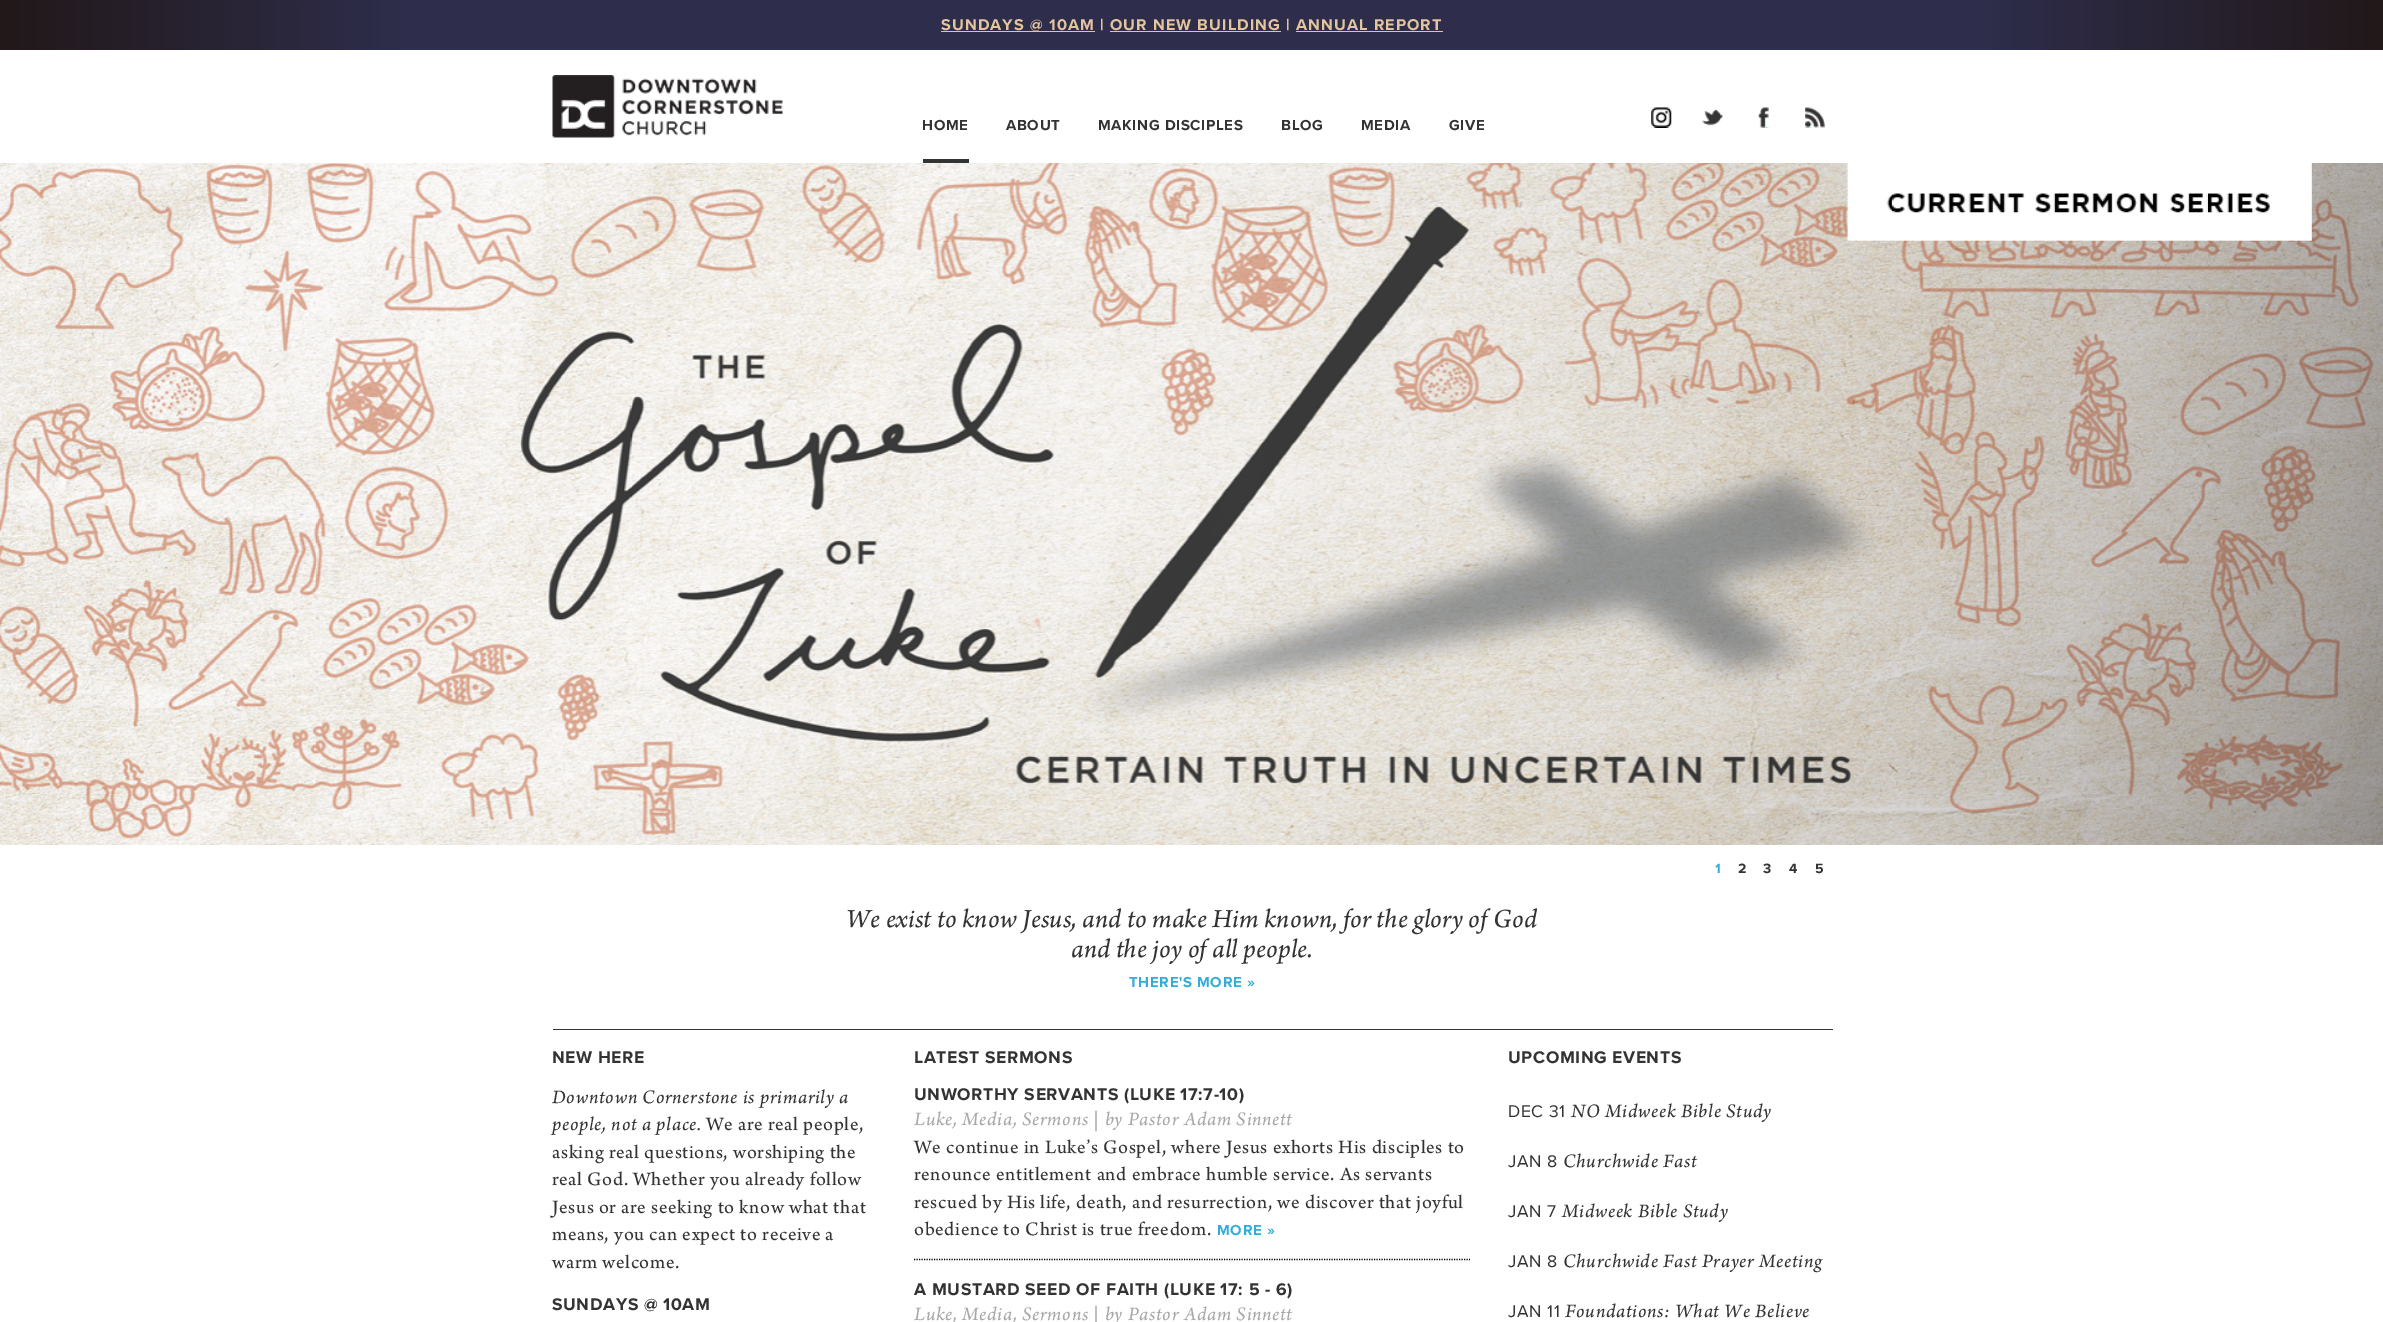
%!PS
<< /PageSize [2383 1322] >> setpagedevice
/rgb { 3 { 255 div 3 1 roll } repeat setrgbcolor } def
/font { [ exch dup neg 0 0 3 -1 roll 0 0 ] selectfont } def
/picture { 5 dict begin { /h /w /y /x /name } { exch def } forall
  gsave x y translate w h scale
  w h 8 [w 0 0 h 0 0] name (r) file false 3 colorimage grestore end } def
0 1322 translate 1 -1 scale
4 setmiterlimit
255 255 255 rgb
0 0 2383 1322 rectfill
gsave 0 0 moveto 2383 0 lineto 2383 50 lineto 0 50 lineto closepath clip newpath
<< /ShadingType 2 /ColorSpace /DeviceRGB /Coords [0 25 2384 25] /Extend [true true] /Function << /FunctionType 3 /Domain [0 1] /Functions [<< /FunctionType 2 /Domain [0 1] /C0 [0.133 0.094 0.098] /C1 [0.18 0.18 0.298] /N 1 >> << /FunctionType 2 /Domain [0 1] /C0 [0.18 0.18 0.298] /C1 [0.18 0.18 0.298] /N 1 >> << /FunctionType 2 /Domain [0 1] /C0 [0.18 0.18 0.298] /C1 [0.133 0.094 0.098] /N 1 >>] /Bounds [0.17 0.83] /Encode [0 1 0 1 0 1] >> >> shfill grestore
[
  [941 31 154 1 228 195 160]
  [1110 31 171 1 228 195 160]
  [1296 31 147 1 228 195 160]
] { aload pop rgb rectfill } forall
(img/1.rgb) 552 75 231 63 picture
51 51 51 rgb
923 159 46 4 rectfill
(img/2.rgb) 1651 107 21 21 picture
(img/3.rgb) 1702 109 21 19 picture
(img/4.rgb) 1758 107 11 21 picture
(img/5.rgb) 1805 107 20 21 picture
(img/6.rgb) 0 163 2383 682 picture
553 1029 1280 1 rectfill
0 0 0 rgb
1.2 setlinewidth
[1.25 1.25] 0 setdash
914 1259.5 moveto 1470 1259.5 lineto stroke
/ProximaNova-Bold 16.25 font
228 195 160 rgb
941 30 moveto 1.05 0 (SUNDAYS @ 10AM | OUR NEW BUILDING | ANNUAL REPORT) ashow
/ProximaNova-Bold 15 font
51 51 51 rgb
922 130 moveto 0.62 0 (HOME) ashow
1006 130 moveto 0.62 0 (ABOUT) ashow
1098 130 moveto 0.62 0 (MAKING DISCIPLES) ashow
1281 130 moveto 0.62 0 (BLOG) ashow
1361 130 moveto 0.62 0 (MEDIA) ashow
1449 130 moveto 0.62 0 (GIVE) ashow
/ProximaNova-Bold 14 font
50 173 216 rgb
1715 873 moveto (1) show
51 51 51 rgb
[
  [(2) 1738 873]
  [(3) 1763 873]
  [(4) 1789 873]
  [(5) 1815 873]
] { aload pop moveto show } forall
/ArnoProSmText-Italic 27.5 font
846 927 moveto (We exist to know Jesus, and to make Him known, for the glory of God) show
1071 957 moveto (and the joy of all people.) show
/ProximaNova-Bold 15 font
50 173 216 rgb
1129 987 moveto 0.62 0 (THERE'S MORE ») ashow
/ProximaNova-Bold 17.5 font
51 51 51 rgb
552 1063 moveto 0.62 0 (NEW HERE) ashow
/ArnoProSmText-Italic 20 font
552 1103 moveto 0.62 0 (Downtown Cornerstone is primarily a) ashow
552 1130 moveto 0.62 0 (people, not a place.) ashow
/ArnoProSmText-Regular 20 font
706 1130 moveto 0.62 0 (We are real people,) ashow
552 1158 moveto 0.62 0 (asking real questions, worshiping the) ashow
552 1185 moveto 0.62 0 (real God. Whether you already follow) ashow
552 1213 moveto 0.62 0 (Jesus or are seeking to know what that) ashow
552 1240 moveto 0.62 0 (means, you can expect to receive a) ashow
552 1268 moveto 0.62 0 (warm welcome.) ashow
/ProximaNova-Bold 17.5 font
552 1310 moveto 0.62 0 (SUNDAYS @ 10AM) ashow
914 1063 moveto 0.62 0 (LATEST SERMONS) ashow
914 1100 moveto 0.62 0 (UNWORTHY SERVANTS \(LUKE 17:7-10\)) ashow
/ArnoProSmText-Italic 20 font
166 167 167 rgb
914 1125 moveto 0.62 0 (Luke, Media, Sermons | by Pastor Adam Sinnett) ashow
/ArnoProSmText-Regular 20 font
51 51 51 rgb
914 1153 moveto 0.62 0 (We continue in Luke’s Gospel, where Jesus exhorts His disciples to) ashow
914 1180 moveto 0.62 0 (renounce entitlement and embrace humble service. As servants) ashow
914 1208 moveto 0.62 0 (rescued by His life, death, and resurrection, we discover that joyful) ashow
914 1235 moveto 0.62 0 (obedience to Christ is true freedom.) ashow
/ProximaNova-Bold 15 font
50 173 216 rgb
1217 1235 moveto 0.62 0 (MORE ») ashow
/ProximaNova-Bold 17.5 font
51 51 51 rgb
914 1295 moveto 0.62 0 (A MUSTARD SEED OF FAITH \(LUKE 17: 5 - 6\)) ashow
/ArnoProSmText-Italic 20 font
166 167 167 rgb
914 1320 moveto 0.62 0 (Luke, Media, Sermons | by Pastor Adam Sinnett) ashow
/ProximaNova-Bold 17.5 font
51 51 51 rgb
1508 1063 moveto 0.62 0 (UPCOMING EVENTS) ashow
/ProximaNova-Regular 17.5 font
1508 1117 moveto 0.62 0 (DEC 31) ashow
/ArnoProSmText-Italic 20 font
1571 1117 moveto 0.62 0 (NO Midweek Bible Study) ashow
/ProximaNova-Regular 17.5 font
1508 1167 moveto 0.62 0 (JAN 8) ashow
/ArnoProSmText-Italic 20 font
1563 1167 moveto 0.62 0 (Churchwide Fast) ashow
/ProximaNova-Regular 17.5 font
1508 1217 moveto 0.62 0 (JAN 7) ashow
/ArnoProSmText-Italic 20 font
1562 1217 moveto 0.62 0 (Midweek Bible Study) ashow
/ProximaNova-Regular 17.5 font
1508 1267 moveto 0.62 0 (JAN 8) ashow
/ArnoProSmText-Italic 20 font
1563 1267 moveto 0.62 0 (Churchwide Fast Prayer Meeting) ashow
/ProximaNova-Regular 17.5 font
1508 1317 moveto 0.62 0 (JAN 11) ashow
/ArnoProSmText-Italic 20 font
1565 1317 moveto 0.62 0 (Foundations: What We Believe) ashow
showpage
